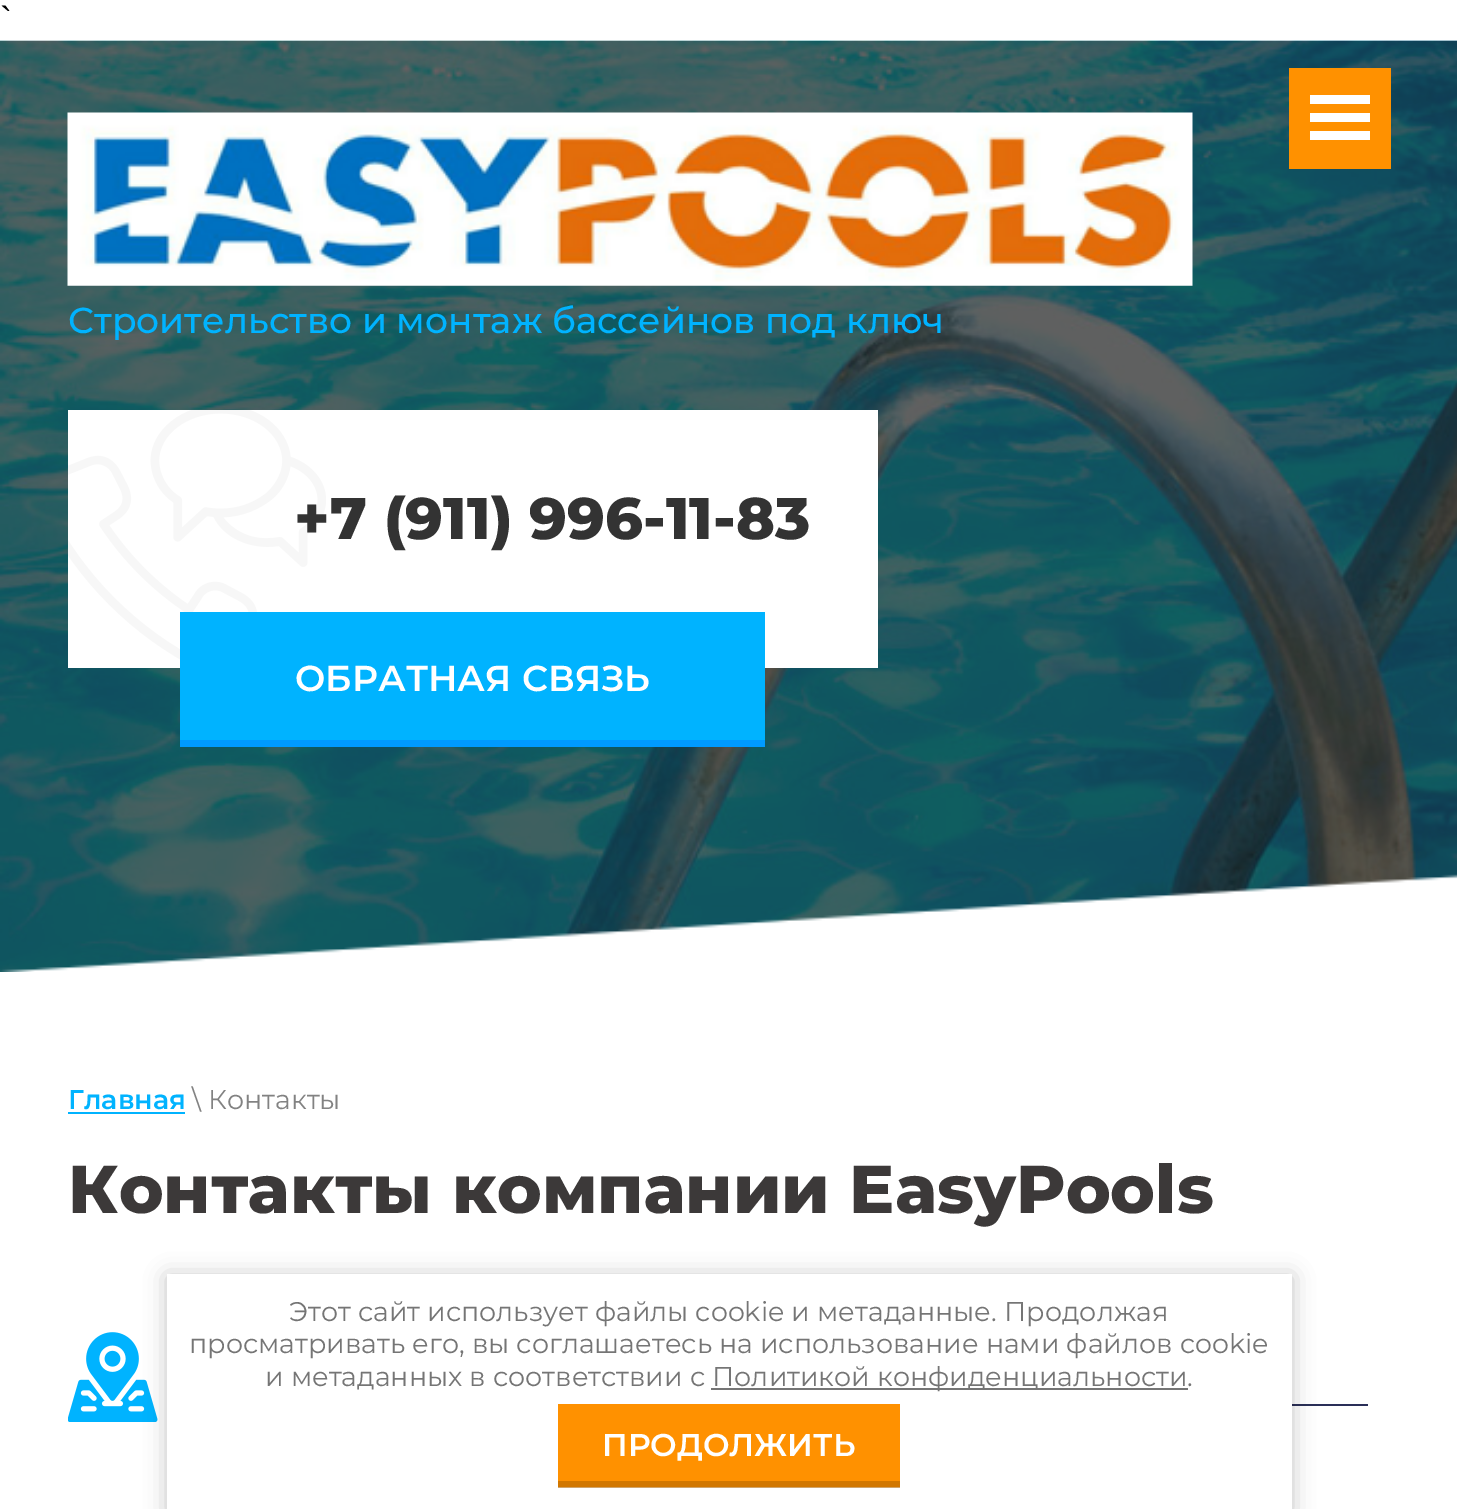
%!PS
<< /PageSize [1457 1509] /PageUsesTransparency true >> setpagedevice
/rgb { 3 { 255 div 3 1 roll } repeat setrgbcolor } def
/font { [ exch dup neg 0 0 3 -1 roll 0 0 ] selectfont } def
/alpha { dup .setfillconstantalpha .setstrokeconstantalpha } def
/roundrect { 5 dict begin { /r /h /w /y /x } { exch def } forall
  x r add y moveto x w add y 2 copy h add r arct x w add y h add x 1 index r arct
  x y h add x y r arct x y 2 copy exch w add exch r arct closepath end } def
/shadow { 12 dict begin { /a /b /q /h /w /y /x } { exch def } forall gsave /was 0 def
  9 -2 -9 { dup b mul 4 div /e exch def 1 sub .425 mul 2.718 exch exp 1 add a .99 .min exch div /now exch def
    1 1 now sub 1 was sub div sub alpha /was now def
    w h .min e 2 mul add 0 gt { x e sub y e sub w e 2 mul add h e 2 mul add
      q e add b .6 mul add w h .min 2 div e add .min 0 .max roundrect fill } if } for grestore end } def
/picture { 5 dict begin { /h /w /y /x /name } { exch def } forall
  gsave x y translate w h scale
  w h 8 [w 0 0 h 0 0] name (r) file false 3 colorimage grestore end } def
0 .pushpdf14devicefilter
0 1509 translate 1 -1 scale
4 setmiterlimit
255 255 255 rgb
0 0 1457 1509 rectfill
(img/1.rgb) 0 40 1457 932 picture
[
  [1289 68 102 101 255 145 0]
  [1310 95 60 9 255 255 255]
  [1310 113 60 9 255 255 255]
  [1310 131 60 9 255 255 255]
] { aload pop rgb rectfill } forall
(img/2.rgb) 67 112 1126 174 picture
68 410 810 258 rectfill
(img/3.rgb) 68 410 258 250 picture
[
  [180 612 585 128 0 179 255]
  [180 740 585 7 0 154 255]
  [68 1112 117 2 0 179 255]
] { aload pop rgb rectfill } forall
(img/4.rgb) 68 1332 90 90 picture
42 47 88 rgb
1292 1404 76 2 rectfill
0 0 0 rgb
167 1276 1125 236 0 11 0.23 shadow
[
  [167 1274 1125 235 255 255 255]
  [558 1487 342 1 209 165 107]
  [711 1388 477 2 117 117 117]
  [558 1404 342 77 255 145 0]
  [558 1481 342 6 209 119 0]
] { aload pop rgb rectfill } forall
/LiberationSans-Regular 36 font
0 0 0 rgb
0 32 moveto (`) show
/Montserrat-Medium 36 font
0 179 255 rgb
68 333 moveto (Строительство и монтаж бассейнов под ключ) show
/Montserrat-ExtraBold 58.5 font
51 51 51 rgb
294 539 moveto (+7 \(911\) 996-11-83) show
/Montserrat-SemiBold 36 font
255 255 255 rgb
295 691 moveto (ОБРАТНАЯ СВЯЗЬ) show
/Montserrat-SemiBold 27 font
0 179 255 rgb
68 1109 moveto (Главная) show
/Montserrat-Regular 27 font
130 130 130 rgb
192 1109 moveto (\\ Контакты) show
/Montserrat-ExtraBold 67.5 font
60 57 57 rgb
68 1213 moveto (Контакты компании EasyPools) show
/Montserrat-Regular 27 font
117 117 117 rgb
[
  [(Этот сайт использует файлы cookie и метаданные. Продолжая) 289 1321]
  [(просматривать его, вы соглашаетесь на использование нами файлов cookie) 189 1353]
  [(и метаданных в соответствии с) 265 1386]
  [(Политикой конфиденциальности.) 712 1386]
] { aload pop moveto show } forall
/Montserrat-SemiBold 31.5 font
255 255 255 rgb
602 1456 moveto (ПРОДОЛЖИТЬ) show
.poppdf14devicefilter showpage
